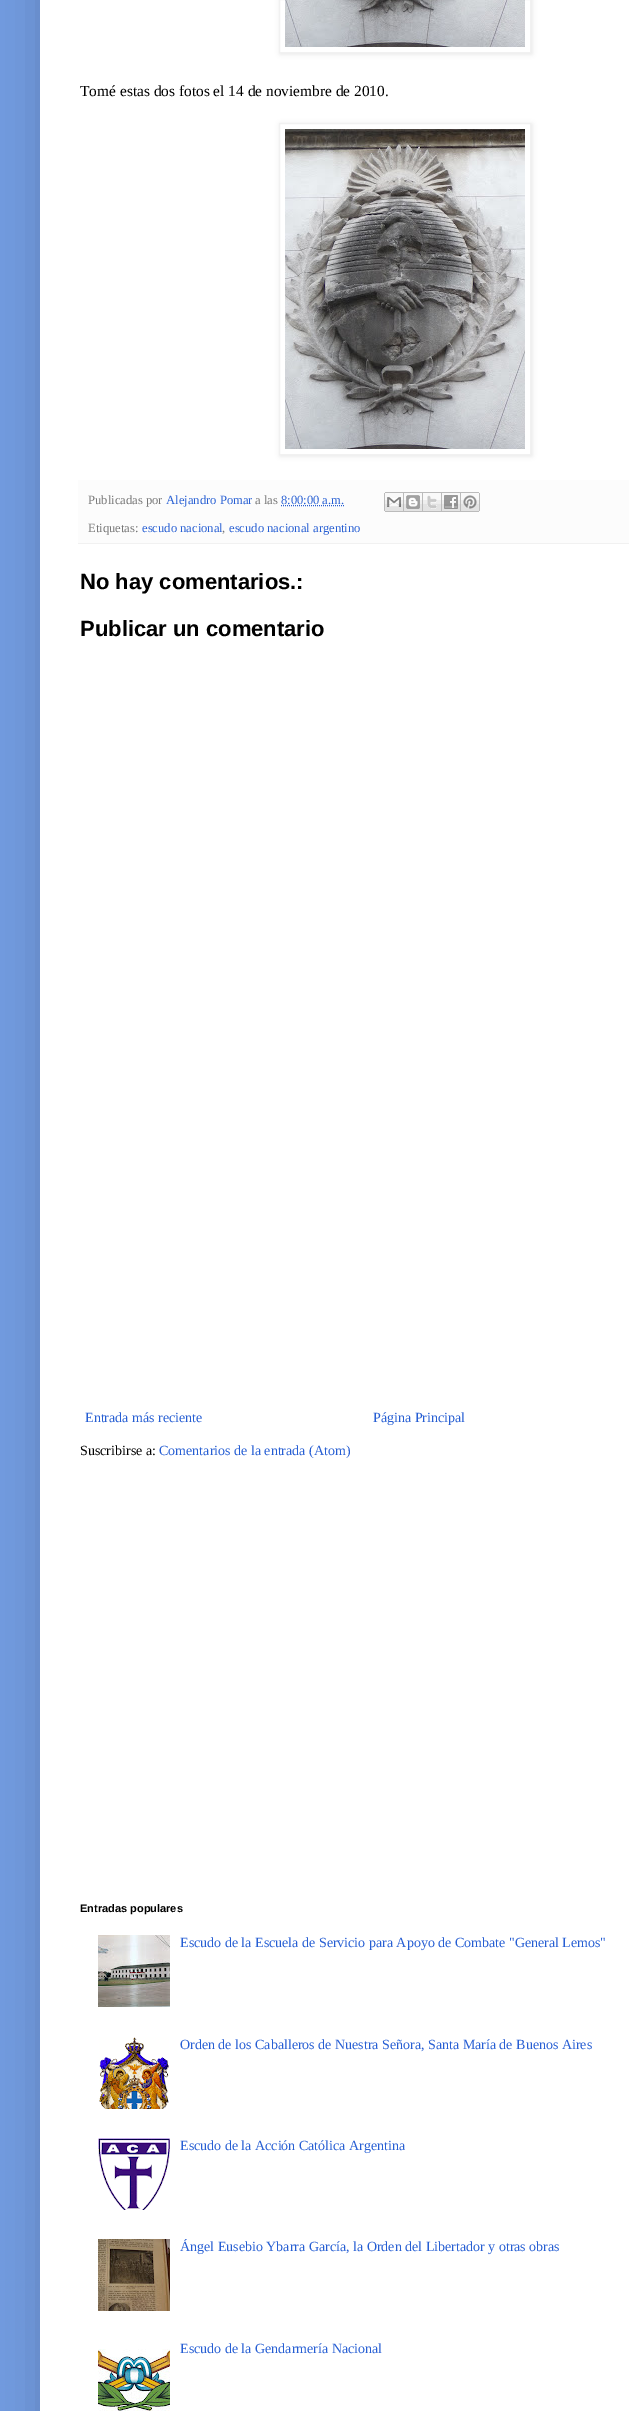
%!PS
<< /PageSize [629 2411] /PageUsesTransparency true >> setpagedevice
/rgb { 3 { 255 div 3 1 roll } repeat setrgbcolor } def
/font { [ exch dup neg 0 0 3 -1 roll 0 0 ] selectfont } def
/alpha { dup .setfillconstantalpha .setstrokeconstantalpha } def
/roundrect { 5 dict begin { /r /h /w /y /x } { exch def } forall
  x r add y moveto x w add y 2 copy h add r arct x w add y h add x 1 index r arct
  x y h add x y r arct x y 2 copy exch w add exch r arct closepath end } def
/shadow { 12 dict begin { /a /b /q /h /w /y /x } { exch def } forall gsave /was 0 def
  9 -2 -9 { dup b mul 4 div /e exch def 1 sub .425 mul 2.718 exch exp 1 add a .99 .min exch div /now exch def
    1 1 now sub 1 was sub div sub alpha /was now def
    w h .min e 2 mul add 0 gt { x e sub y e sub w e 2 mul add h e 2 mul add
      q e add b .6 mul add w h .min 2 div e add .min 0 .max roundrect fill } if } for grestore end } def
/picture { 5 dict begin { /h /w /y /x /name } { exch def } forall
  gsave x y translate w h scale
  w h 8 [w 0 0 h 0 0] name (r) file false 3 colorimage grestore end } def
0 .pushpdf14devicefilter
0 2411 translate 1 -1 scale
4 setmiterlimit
113 155 223 rgb
0 0 629 2411 rectfill
0 0 0 rgb
40 -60 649 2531 0 20 0.15 shadow
255 255 255 rgb
40 0 589 2411 rectfill
gsave
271 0 moveto 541 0 lineto 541 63 lineto 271 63 lineto closepath 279 -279 moveto 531 -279 lineto 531 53 lineto 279 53 lineto closepath eoclip newpath
0 0 0 rgb
280 -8 252 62 0 2.5 0.1 shadow
grestore
241 241 241 rgb
279.5 -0.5 251 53 rectstroke
(img/1.rgb) 285 0 240 47 picture
gsave
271 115 moveto 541 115 lineto 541 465 lineto 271 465 lineto closepath 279 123 moveto 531 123 lineto 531 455 lineto 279 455 lineto closepath eoclip newpath
0 0 0 rgb
280 124 252 332 0 2.5 0.1 shadow
grestore
279.5 123.5 251 331 rectstroke
(img/2.rgb) 285 129 240 320 picture
252 252 252 rgb
78 480 551 63 rectfill
241 241 241 rgb
78 543 551 1 rectfill
38 94 211 rgb
[1 1] 0 setdash
281 505.5 moveto 344 505.5 lineto stroke
(img/3.rgb) 384 492 20 20 picture
(img/4.rgb) 404 492 19 20 picture
(img/5.rgb) 423 492 19 20 picture
(img/6.rgb) 442 492 19 20 picture
(img/7.rgb) 461 492 19 20 picture
(img/8.rgb) 98 1935 72 72 picture
(img/9.rgb) 99 2037 70 72 picture
(img/10.rgb) 98 2138 72 72 picture
(img/11.rgb) 98 2239 72 72 picture
(img/12.rgb) 98 2349 72 62 picture
/LiberationSerif-Regular 15.4 font
0 0 0 rgb
80 96 moveto (Tomé estas dos fotos el 14 de noviembre de 2010.) show
/LiberationSerif-Regular 12.6 font
118 118 118 rgb
88 504 moveto (Publicadas por) show
38 94 211 rgb
166 504 moveto (Alejandro Pomar) show
118 118 118 rgb
255 504 moveto (a las) show
38 94 211 rgb
281 504 moveto (8:00:00 a.m.) show
118 118 118 rgb
88 532 moveto (Etiquetas:) show
38 94 211 rgb
142 532 moveto (escudo nacional) show
118 118 118 rgb
222 532 moveto (,) show
38 94 211 rgb
229 532 moveto (escudo nacional argentino) show
/LiberationSans-Bold 22 font
0 0 0 rgb
80 589 moveto (No hay comentarios.:) show
80 636 moveto (Publicar un comentario) show
/LiberationSerif-Regular 14 font
38 94 211 rgb
85 1422 moveto (Entrada más reciente) show
373 1422 moveto (Página Principal) show
0 0 0 rgb
80 1455 moveto (Suscribirse a:) show
38 94 211 rgb
159 1455 moveto (Comentarios de la entrada \(Atom\)) show
/LiberationSans-Bold 11 font
0 0 0 rgb
80 1912 moveto (Entradas populares) show
/LiberationSerif-Regular 14 font
38 94 211 rgb
[
  [(Escudo de la Escuela de Servicio para Apoyo de Combate "General Lemos") 180 1947]
  [(Orden de los Caballeros de Nuestra Señora, Santa María de Buenos Aires) 180 2049]
  [(Escudo de la Acción Católica Argentina) 180 2150]
  [(Ángel Eusebio Ybarra García, la Orden del Libertador y otras obras) 180 2251]
  [(Escudo de la Gendarmería Nacional) 180 2353]
] { aload pop moveto show } forall
.poppdf14devicefilter showpage
